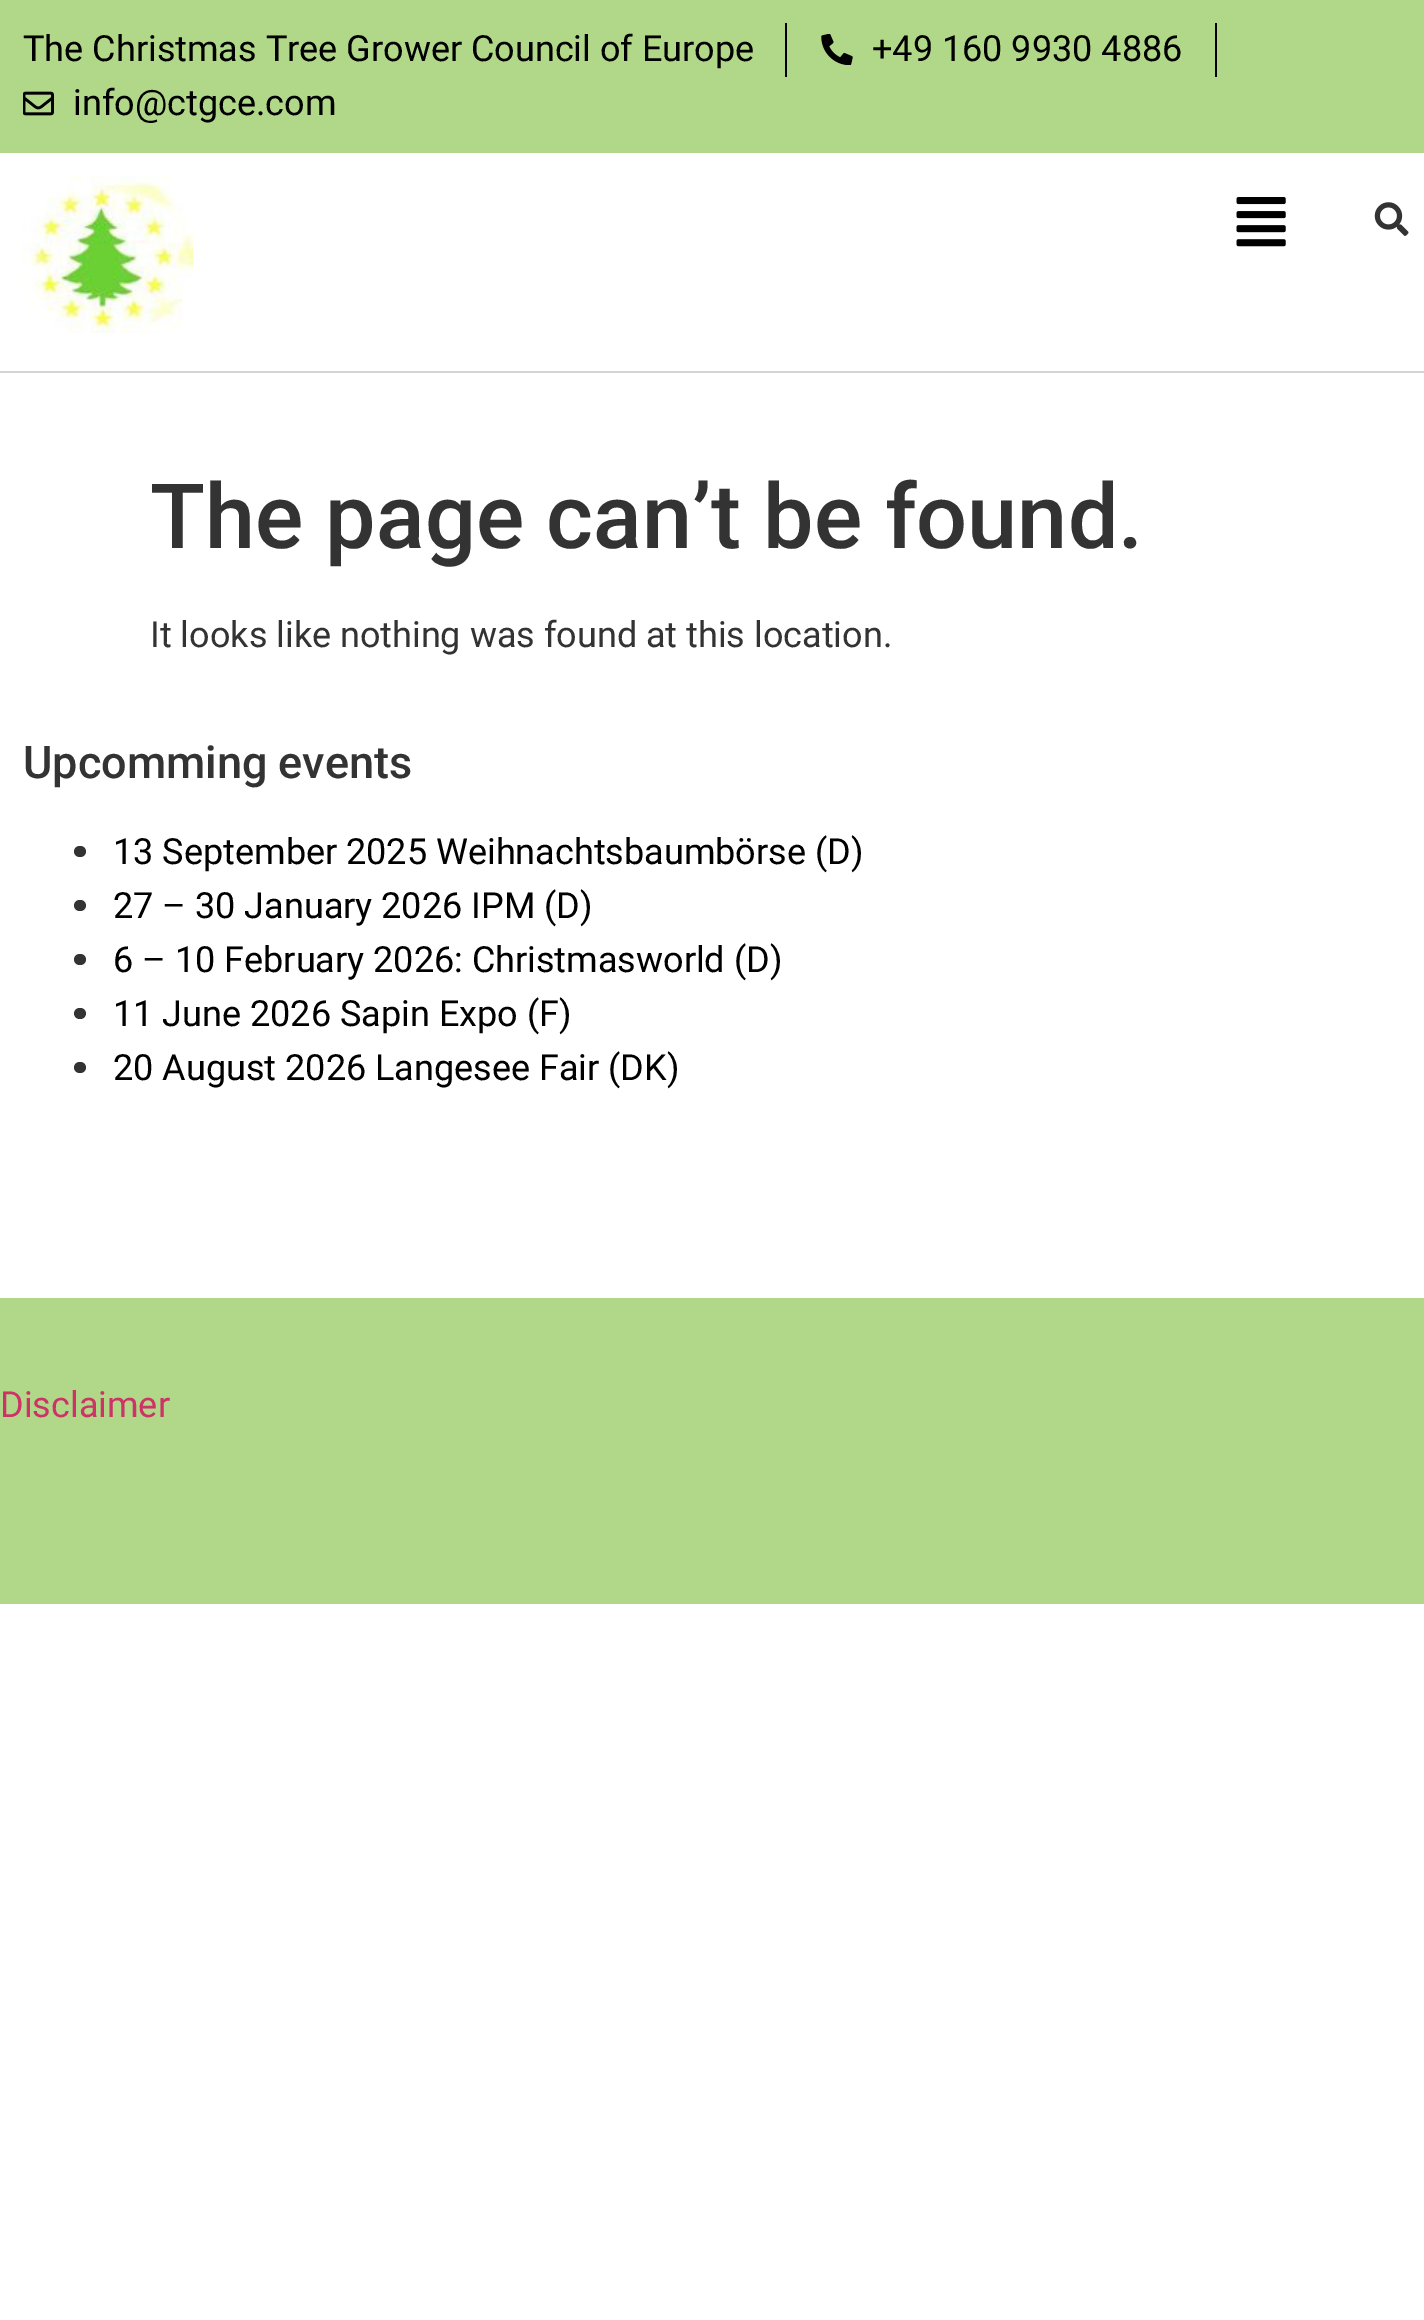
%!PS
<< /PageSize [1424 2320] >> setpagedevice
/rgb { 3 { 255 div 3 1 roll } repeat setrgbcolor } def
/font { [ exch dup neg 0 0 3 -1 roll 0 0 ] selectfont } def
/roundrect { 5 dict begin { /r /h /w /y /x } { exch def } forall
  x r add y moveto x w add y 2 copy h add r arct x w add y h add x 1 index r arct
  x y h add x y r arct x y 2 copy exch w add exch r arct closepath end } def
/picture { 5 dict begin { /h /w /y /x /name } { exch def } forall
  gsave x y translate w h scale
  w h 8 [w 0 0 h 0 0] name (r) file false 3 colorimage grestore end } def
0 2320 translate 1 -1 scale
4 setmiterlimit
255 255 255 rgb
0 0 1424 2320 rectfill
177 216 136 rgb
0 0 1424 153 rectfill
0 0 0 rgb
785 23 2 54 rectfill
(img/1.rgb) 821 34 32 31 picture
1215 23 2 54 rectfill
(img/2.rgb) 23 91 31 25 picture
212 212 212 rgb
0 371 1424 2 rectfill
(img/3.rgb) 22 175 172 158 picture
(img/4.rgb) 1236 197 50 50 picture
(img/5.rgb) 1374 202 35 34 picture
51 51 51 rgb
74 846 12 11 5.5 roundrect fill
74 900 12 11 5.5 roundrect fill
74 954 12 11 5.5 roundrect fill
74 1008 12 11 5.5 roundrect fill
74 1062 12 11 5.5 roundrect fill
177 216 136 rgb
0 1298 1424 306 rectfill
/Roboto-Regular 36 font
0 0 0 rgb
[
  [(The Christmas Tree Grower Council of Europe) 23 61]
  [(+49 160 9930 4886) 872 61]
  [(info@ctgce.com) 73 115]
] { aload pop moveto show } forall
/Roboto-Medium 90 font
51 51 51 rgb
150 548 moveto (The page can’t be found.) show
/Roboto-Regular 36 font
150 647 moveto (It looks like nothing was found at this location.) show
/Roboto-Medium 45 font
23 778 moveto (Upcomming events) show
/Roboto-Regular 36 font
0 0 0 rgb
[
  [(13 September 2025 Weihnachtsbaumbörse \(D\)) 113 864]
  [(27 – 30 January 2026 IPM \(D\)) 113 918]
  [(6 – 10 February 2026: Christmasworld \(D\)) 113 972]
  [(11 June 2026 Sapin Expo \(F\)) 113 1026]
  [(20 August 2026 Langesee Fair \(DK\)) 113 1080]
] { aload pop moveto show } forall
204 51 102 rgb
0 1417 moveto (Disclaimer) show
showpage
